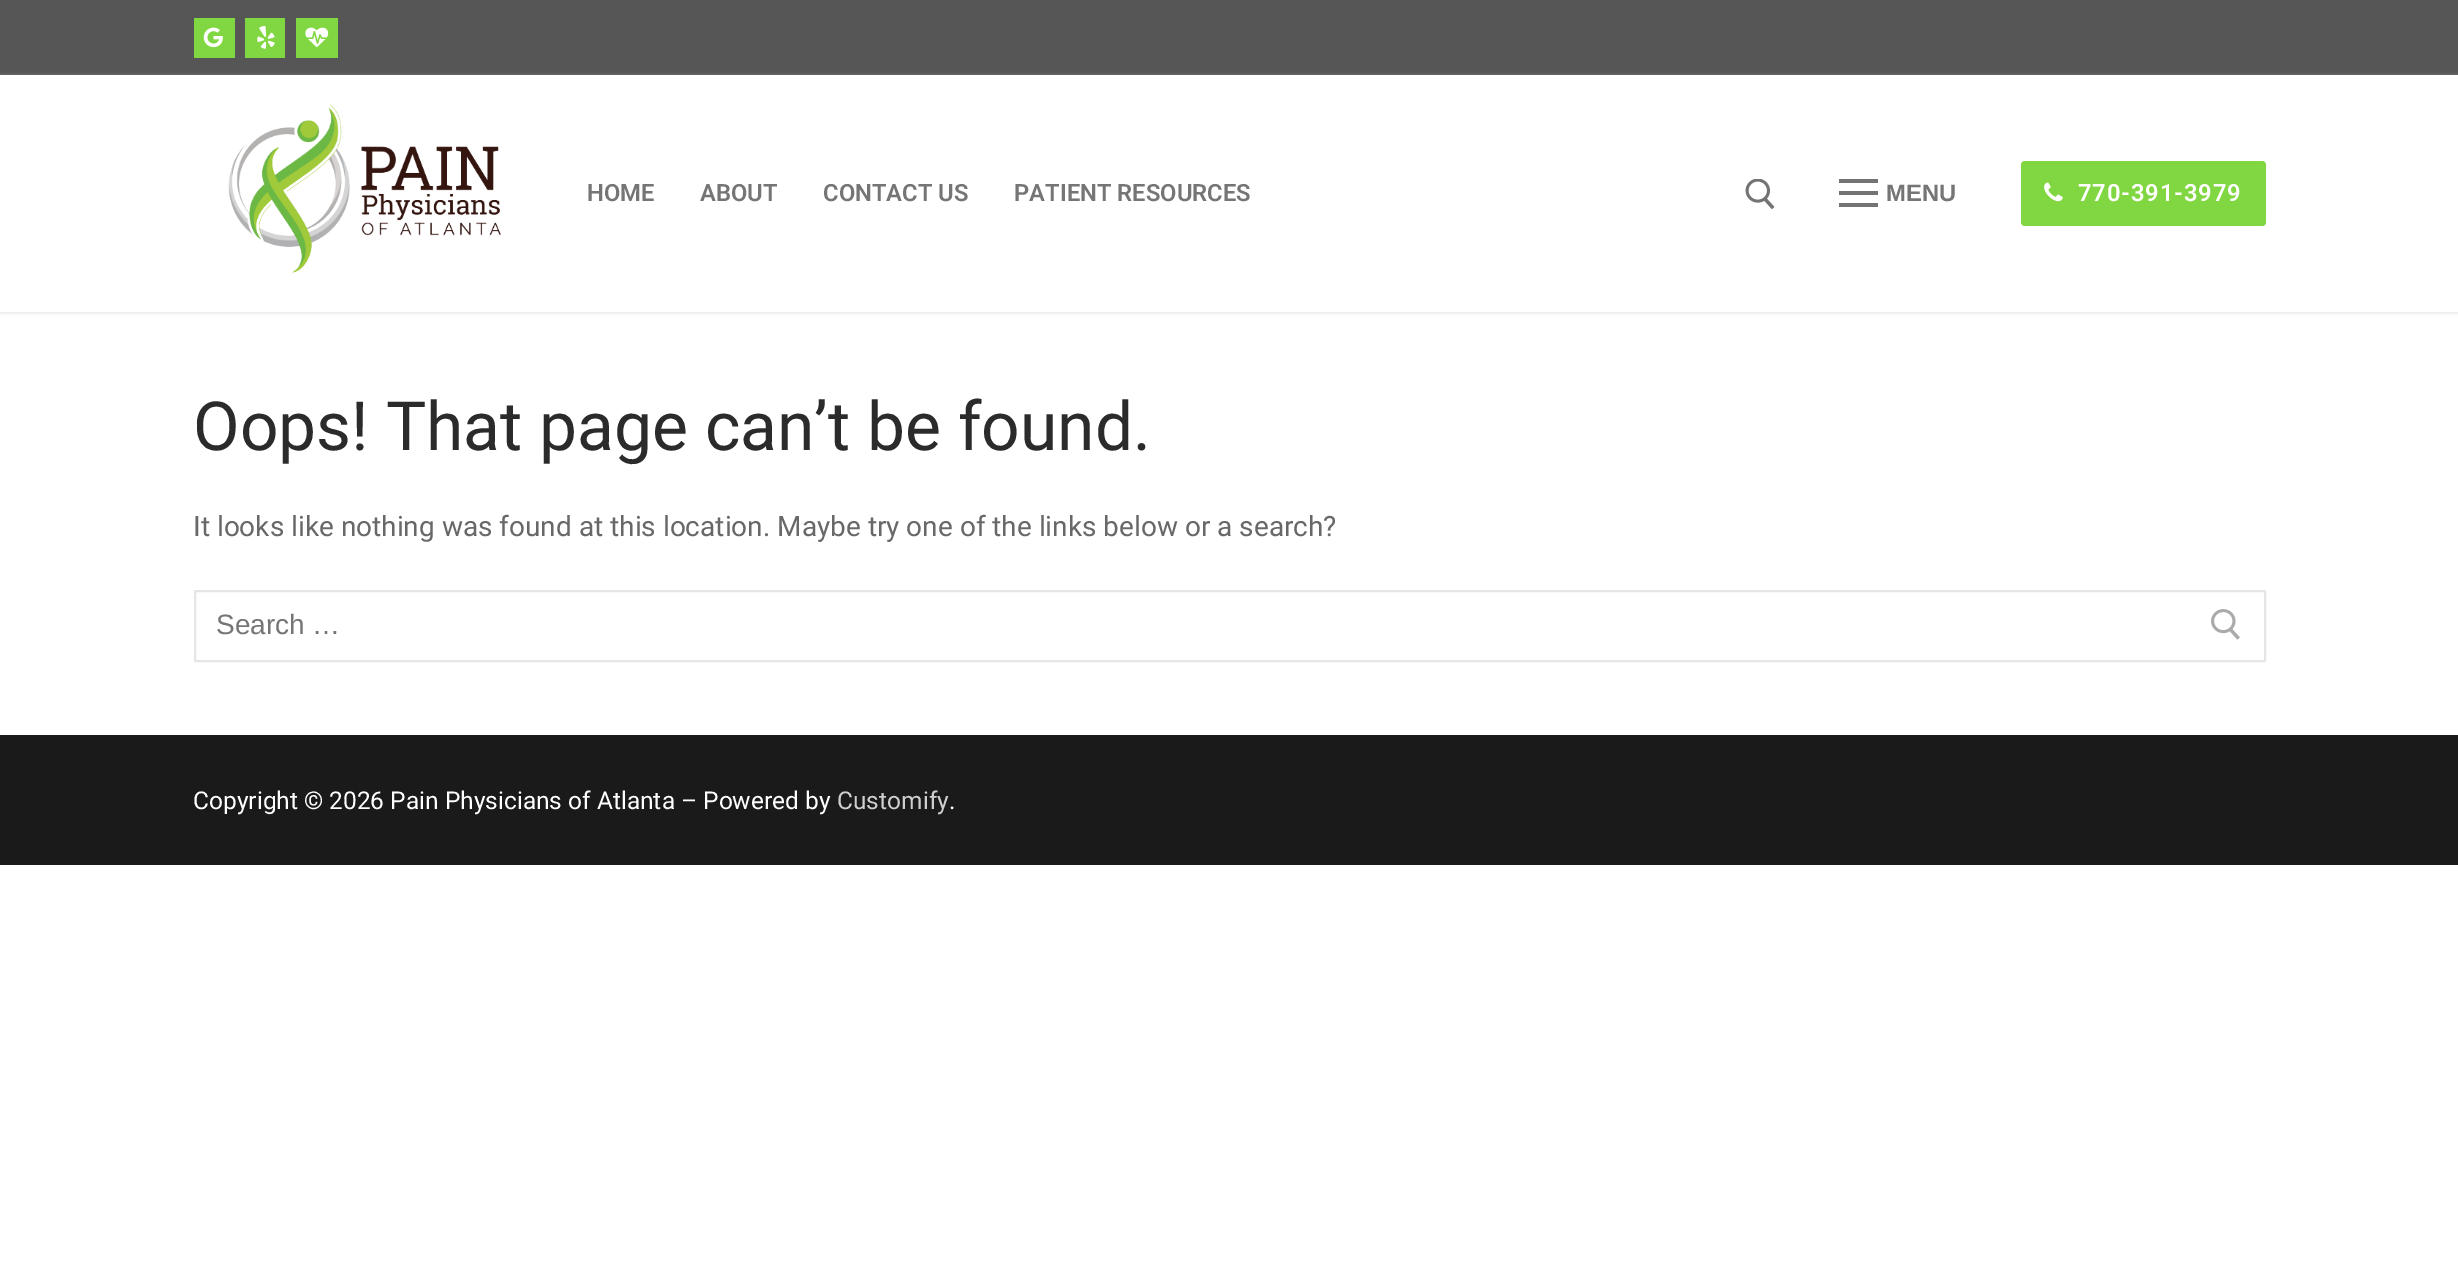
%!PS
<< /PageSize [2458 1265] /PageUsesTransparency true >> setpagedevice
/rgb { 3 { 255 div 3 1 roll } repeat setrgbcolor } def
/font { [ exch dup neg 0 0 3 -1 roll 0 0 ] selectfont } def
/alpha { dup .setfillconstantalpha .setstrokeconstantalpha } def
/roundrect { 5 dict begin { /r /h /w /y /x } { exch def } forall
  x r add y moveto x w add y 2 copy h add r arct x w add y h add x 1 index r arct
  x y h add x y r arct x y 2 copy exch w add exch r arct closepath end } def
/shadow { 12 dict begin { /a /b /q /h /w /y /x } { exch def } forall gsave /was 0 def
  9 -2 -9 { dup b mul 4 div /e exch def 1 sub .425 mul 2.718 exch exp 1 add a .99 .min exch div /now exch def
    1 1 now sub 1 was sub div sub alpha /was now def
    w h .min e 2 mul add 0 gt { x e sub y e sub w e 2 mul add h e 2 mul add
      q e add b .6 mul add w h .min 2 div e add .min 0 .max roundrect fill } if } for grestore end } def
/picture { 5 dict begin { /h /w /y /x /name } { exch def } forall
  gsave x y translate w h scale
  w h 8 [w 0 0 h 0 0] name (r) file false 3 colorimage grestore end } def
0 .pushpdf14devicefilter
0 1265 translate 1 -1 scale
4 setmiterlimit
255 255 255 rgb
0 0 2458 1265 rectfill
86 86 86 rgb
0 0 2458 75 rectfill
129 215 66 rgb
194 18 41 40 rectfill
(img/1.rgb) 203 27 20 21 picture
245 18 40 40 rectfill
(img/2.rgb) 257 26 18 23 picture
296 18 42 40 rectfill
(img/3.rgb) 305 27 24 21 picture
225 229 234 rgb
0 77 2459 236 0 2 1 shadow
255 255 255 rgb
0 75 2458 237 rectfill
(img/4.rgb) 228 104 273 169 picture
(img/5.rgb) 1745 179 30 31 picture
[
  [1839 191 39 4 115 115 115]
  [1839 179 39 4 115 115 115]
  [1839 203 39 4 115 115 115]
] { aload pop rgb rectfill } forall
129 215 66 rgb
2021 161 245 65 4 roundrect fill
(img/6.rgb) 2044 182 19 20 picture
229 229 229 rgb
2 setlinewidth
195 591 2070 70 1 roundrect stroke
(img/7.rgb) 2211 609 29 31 picture
26 26 26 rgb
0 735 2458 130 rectfill
/Roboto-SemiBold 23.75 font
117 117 117 rgb
[
  [(HOME) 587 201]
  [(ABOUT) 700 201]
  [(CONTACT US) 823 201]
  [(PATIENT RESOURCES) 1014 201]
] { aload pop moveto show } forall
/LiberationSans-Bold 23.75 font
1886 201 moveto (MENU) show
/Roboto-SemiBold 23.75 font
255 255 255 rgb
2078 201 moveto 0.9 0 (770-391-3979) ashow
/Roboto-Regular 67.75 font
43 43 43 rgb
193 450 moveto (Oops! That page can’t be found.) show
/Roboto-Regular 28 font
104 104 104 rgb
193 536 moveto (It looks like nothing was found at this location. Maybe try one of the links below or a search?) show
/LiberationSans-Regular 28 font
117 117 117 rgb
216 634 moveto (Search …) show
/Roboto-Regular 24.5 font
255 255 255 rgb
193 809 moveto (Copyright © 2026 Pain Physicians of Atlanta – Powered by) show
207 207 207 rgb
837 809 moveto (Customify) show
255 255 255 rgb
949 809 moveto (.) show
.poppdf14devicefilter showpage
